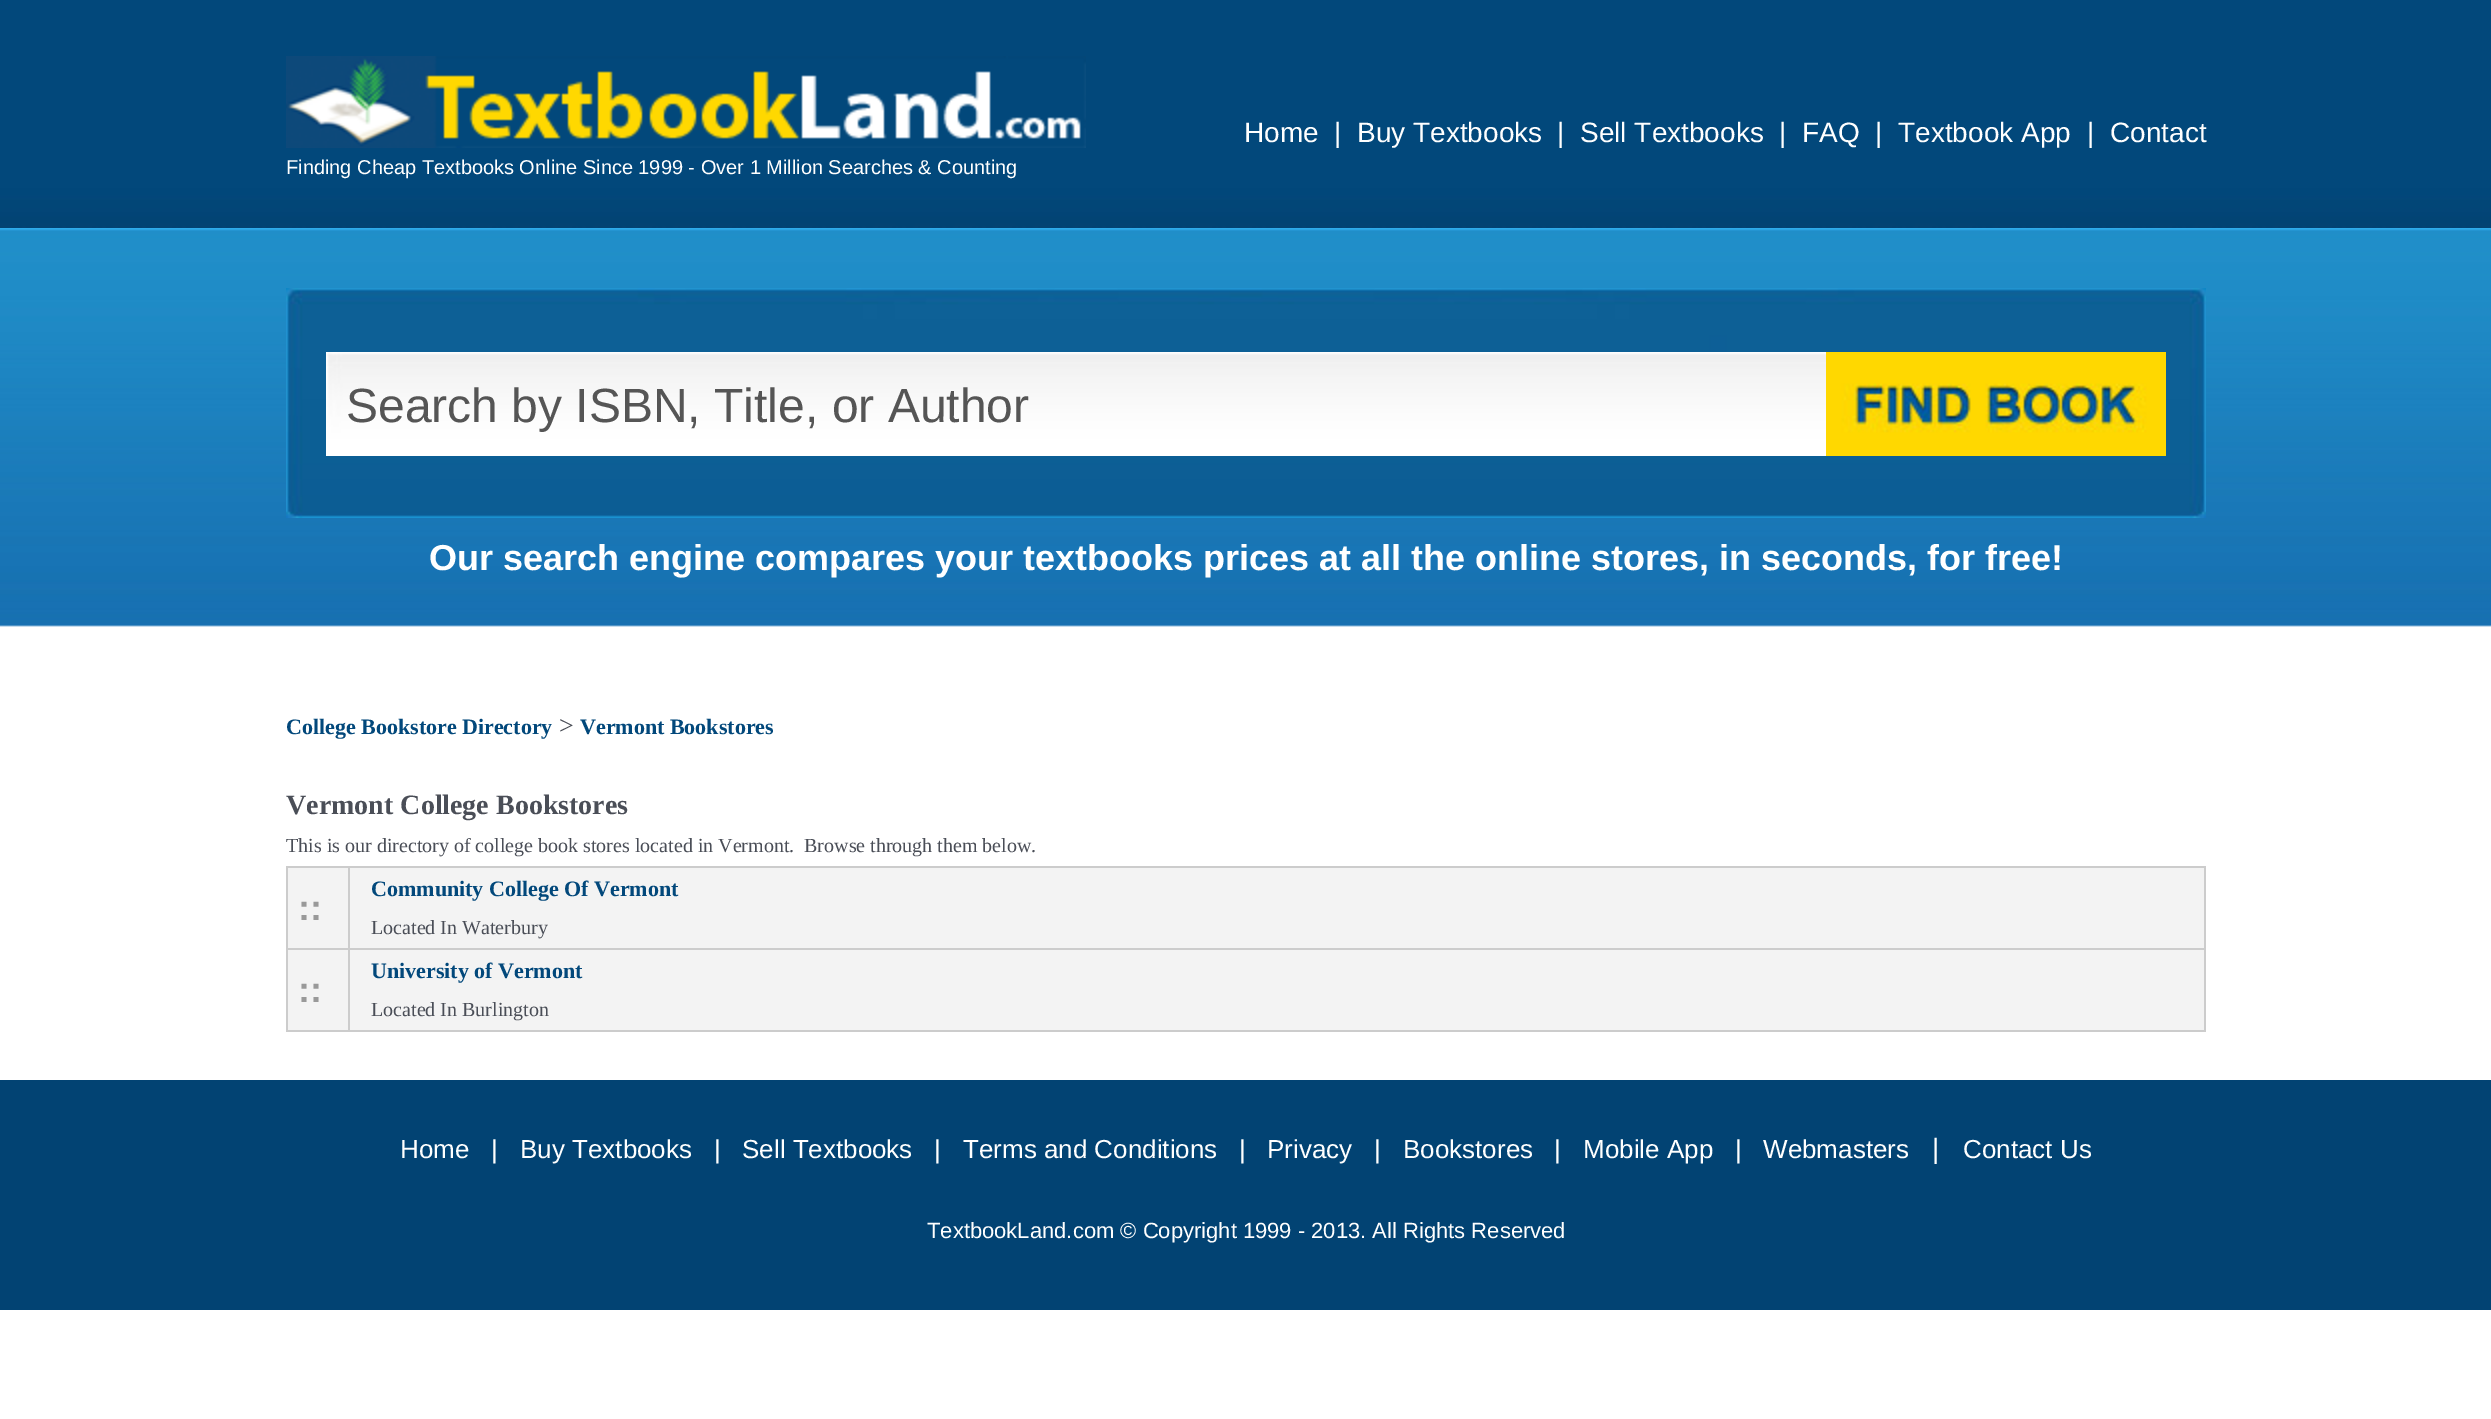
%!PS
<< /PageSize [2491 1419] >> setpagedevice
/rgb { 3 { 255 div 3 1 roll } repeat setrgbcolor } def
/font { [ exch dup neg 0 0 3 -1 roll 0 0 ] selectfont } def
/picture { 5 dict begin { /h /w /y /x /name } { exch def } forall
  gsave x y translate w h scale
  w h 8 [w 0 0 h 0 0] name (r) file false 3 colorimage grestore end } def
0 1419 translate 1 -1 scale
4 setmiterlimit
255 255 255 rgb
0 0 2491 1419 rectfill
(img/1.rgb) 0 0 2491 228 picture
(img/2.rgb) 286 56 800 92 picture
(img/3.rgb) 0 228 2491 399 picture
(img/4.rgb) 286 288 1920 230 picture
(img/5.rgb) 326 352 1500 104 picture
(img/6.rgb) 1826 352 340 104 picture
[
  [286 866 1920 166 204 204 204]
  [288 868 60 80 243 243 243]
  [350 868 1854 80 243 243 243]
  [288 950 60 80 243 243 243]
  [350 950 1854 80 243 243 243]
  [0 1080 2491 230 2 67 115]
] { aload pop rgb rectfill } forall
/LiberationSans-Regular 28 font
255 255 255 rgb
[
  [(Home) 1244 142]
  [(|) 1334 142]
  [(Buy Textbooks) 1357 142]
  [(|) 1557 142]
  [(Sell Textbooks) 1580 142]
  [(|) 1779 142]
  [(FAQ) 1802 142]
  [(|) 1875 142]
  [(Textbook App) 1898 142]
  [(|) 2087 142]
  [(Contact) 2110 142]
] { aload pop moveto show } forall
/LiberationSans-Regular 20 font
286 174 moveto (Finding Cheap Textbooks Online Since 1999 - Over 1 Million Searches & Counting) show
/LiberationSans-Regular 48 font
85 85 85 rgb
346 422 moveto (Search by ISBN, Title, or Author) show
/LiberationSans-Bold 36 font
255 255 255 rgb
429 570 moveto (Our search engine compares your textbooks prices at all the online stores, in seconds, for free!) show
/LiberationSerif-Bold 22 font
2 72 123 rgb
286 734 moveto (College Bookstore Directory) show
/LiberationSerif-Regular 26 font
74 78 87 rgb
559 734 moveto (>) show
/LiberationSerif-Bold 22 font
2 72 123 rgb
580 734 moveto (Vermont Bookstores) show
/LiberationSerif-Bold 28 font
74 78 87 rgb
286 814 moveto (Vermont College Bookstores) show
/LiberationSerif-Regular 20 font
286 852 moveto (This is our directory of college book stores located in Vermont.  Browse through them below.) show
/LiberationSans-Bold 36 font
153 153 153 rgb
298 920 moveto (::) show
/LiberationSerif-Bold 22 font
2 72 123 rgb
371 896 moveto (Community College Of Vermont) show
/LiberationSerif-Regular 20 font
74 78 87 rgb
371 934 moveto (Located In Waterbury) show
/LiberationSans-Bold 36 font
153 153 153 rgb
298 1002 moveto (::) show
/LiberationSerif-Bold 22 font
2 72 123 rgb
371 978 moveto (University of Vermont) show
/LiberationSerif-Regular 20 font
74 78 87 rgb
371 1016 moveto (Located In Burlington) show
/LiberationSans-Regular 26 font
255 255 255 rgb
[
  [(Home) 400 1158]
  [(|) 491 1158]
  [(Buy Textbooks) 520 1158]
  [(|) 714 1158]
  [(Sell Textbooks) 742 1158]
  [(|) 934 1158]
  [(Terms and Conditions) 963 1158]
  [(|) 1239 1158]
  [(Privacy) 1267 1158]
  [(|) 1374 1158]
  [(Bookstores) 1403 1158]
  [(|) 1554 1158]
  [(Mobile App) 1583 1158]
  [(|) 1735 1158]
  [(Webmasters) 1763 1158]
] { aload pop moveto show } forall
/LiberationSans-Regular 28 font
1932 1158 moveto (|) show
/LiberationSans-Regular 26 font
1963 1158 moveto (Contact Us) show
/LiberationSans-Regular 22 font
927 1238 moveto (TextbookLand.com © Copyright 1999 - 2013. All Rights Reserved) show
showpage
